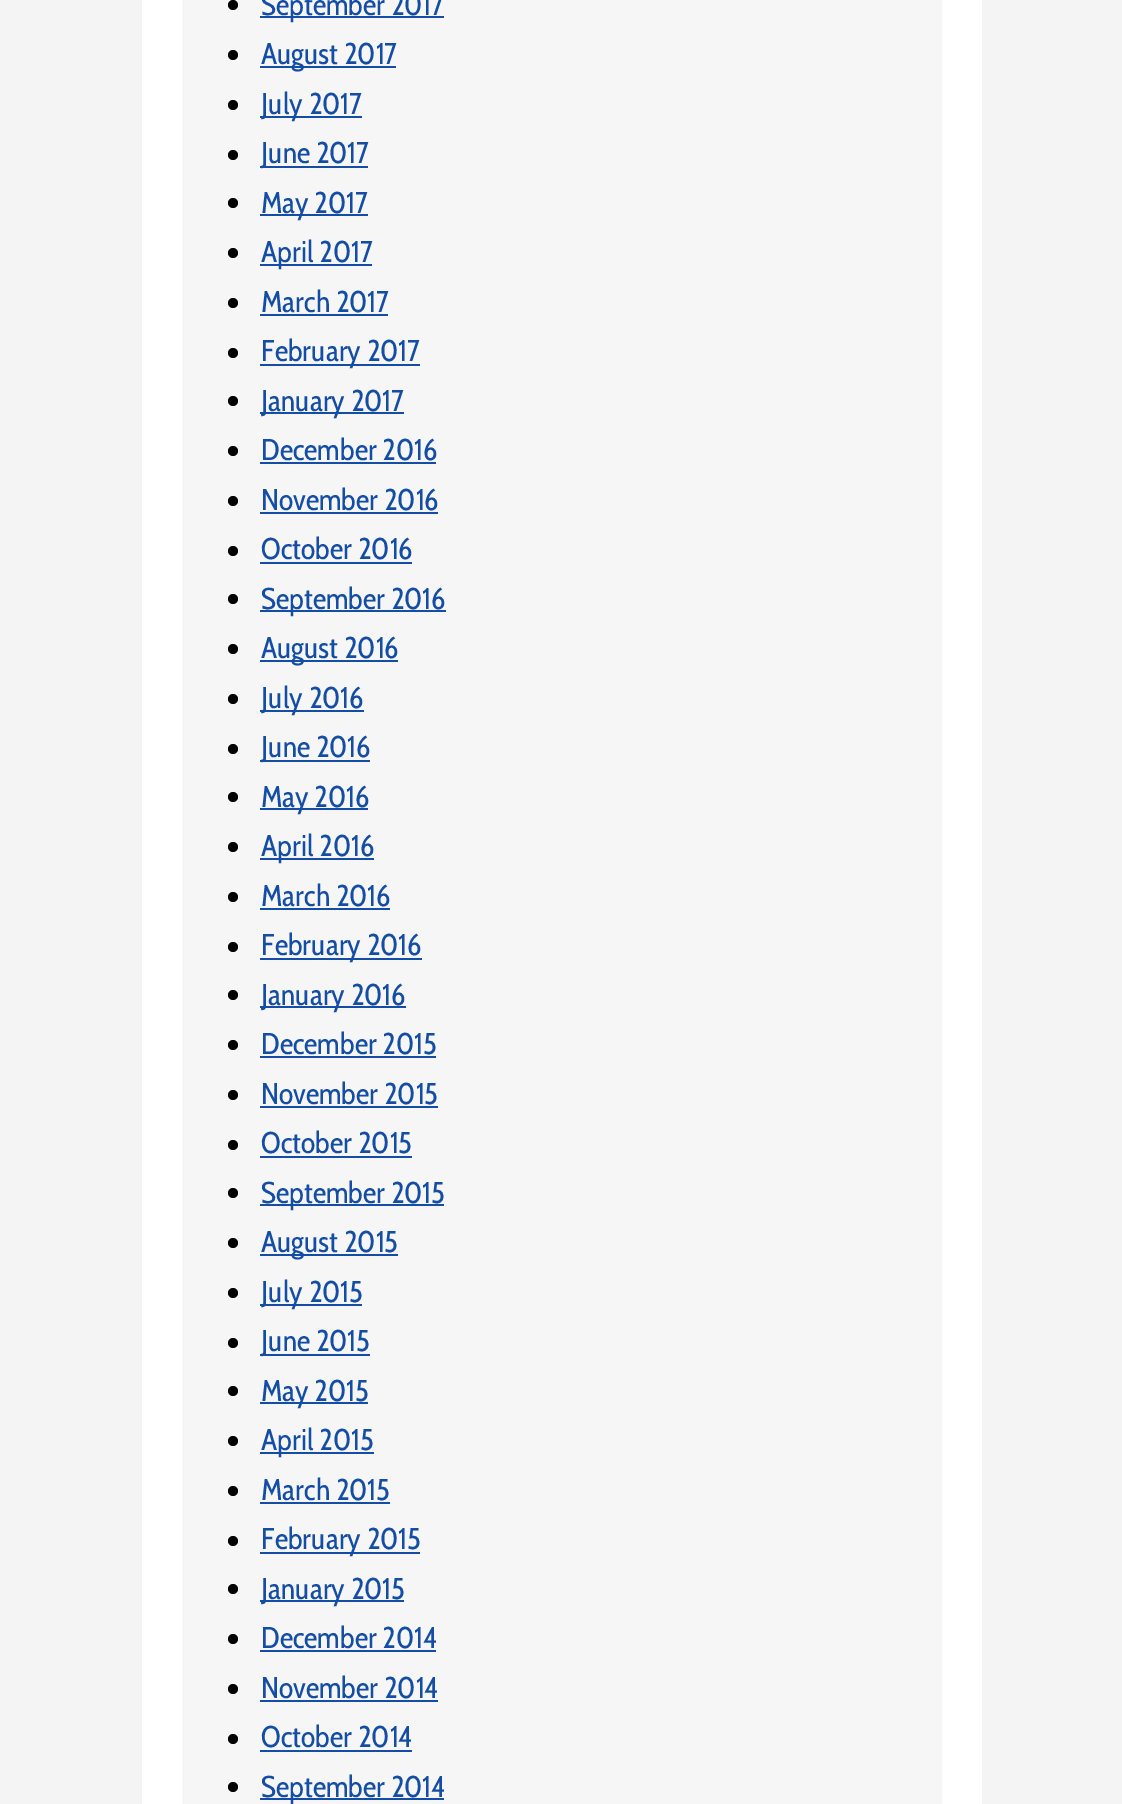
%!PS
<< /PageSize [1122 1804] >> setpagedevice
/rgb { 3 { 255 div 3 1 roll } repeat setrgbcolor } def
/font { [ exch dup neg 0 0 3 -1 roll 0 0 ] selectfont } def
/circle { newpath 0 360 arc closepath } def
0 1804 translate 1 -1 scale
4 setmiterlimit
244 244 244 rgb
0 0 1122 1804 rectfill
255 255 255 rgb
142 0 840 1804 rectfill
246 246 246 rgb
182 0 760 1804 rectfill
0 0 0 rgb
233 5 5 circle fill
19 77 165 rgb
260 16 184 2 rectfill
0 0 0 rgb
233 55 5 circle fill
19 77 165 rgb
260 66 136 2 rectfill
0 0 0 rgb
233 105 5 circle fill
19 77 165 rgb
260 116 102 2 rectfill
0 0 0 rgb
233 155 5 circle fill
19 77 165 rgb
260 166 108 2 rectfill
0 0 0 rgb
233 203 5 circle fill
19 77 165 rgb
260 214 108 2 rectfill
0 0 0 rgb
233 253 5 circle fill
19 77 165 rgb
260 264 112 2 rectfill
0 0 0 rgb
233 303 5 circle fill
19 77 165 rgb
260 314 128 2 rectfill
0 0 0 rgb
233 353 5 circle fill
19 77 165 rgb
260 364 160 2 rectfill
0 0 0 rgb
233 401 5 circle fill
19 77 165 rgb
260 412 144 2 rectfill
0 0 0 rgb
233 451 5 circle fill
19 77 165 rgb
260 462 176 2 rectfill
0 0 0 rgb
233 501 5 circle fill
19 77 165 rgb
260 512 178 2 rectfill
0 0 0 rgb
233 551 5 circle fill
19 77 165 rgb
260 562 152 2 rectfill
0 0 0 rgb
233 599 5 circle fill
19 77 165 rgb
260 610 186 2 rectfill
0 0 0 rgb
233 649 5 circle fill
19 77 165 rgb
260 660 138 2 rectfill
0 0 0 rgb
233 699 5 circle fill
19 77 165 rgb
260 710 104 2 rectfill
0 0 0 rgb
233 749 5 circle fill
19 77 165 rgb
260 760 110 2 rectfill
0 0 0 rgb
233 797 5 circle fill
19 77 165 rgb
260 808 108 2 rectfill
0 0 0 rgb
233 847 5 circle fill
19 77 165 rgb
260 858 114 2 rectfill
0 0 0 rgb
233 897 5 circle fill
19 77 165 rgb
260 908 130 2 rectfill
0 0 0 rgb
233 947 5 circle fill
19 77 165 rgb
260 958 162 2 rectfill
0 0 0 rgb
233 995 5 circle fill
19 77 165 rgb
260 1006 146 2 rectfill
0 0 0 rgb
233 1045 5 circle fill
19 77 165 rgb
260 1056 176 2 rectfill
0 0 0 rgb
233 1095 5 circle fill
19 77 165 rgb
260 1106 178 2 rectfill
0 0 0 rgb
233 1145 5 circle fill
19 77 165 rgb
260 1156 152 2 rectfill
0 0 0 rgb
233 1193 5 circle fill
19 77 165 rgb
260 1204 184 2 rectfill
0 0 0 rgb
233 1243 5 circle fill
19 77 165 rgb
260 1254 138 2 rectfill
0 0 0 rgb
233 1293 5 circle fill
19 77 165 rgb
260 1304 102 2 rectfill
0 0 0 rgb
233 1343 5 circle fill
19 77 165 rgb
260 1354 110 2 rectfill
0 0 0 rgb
233 1391 5 circle fill
19 77 165 rgb
260 1402 108 2 rectfill
0 0 0 rgb
233 1441 5 circle fill
19 77 165 rgb
260 1452 114 2 rectfill
0 0 0 rgb
233 1491 5 circle fill
19 77 165 rgb
260 1502 130 2 rectfill
0 0 0 rgb
233 1541 5 circle fill
19 77 165 rgb
260 1552 160 2 rectfill
0 0 0 rgb
233 1589 5 circle fill
19 77 165 rgb
260 1600 144 2 rectfill
0 0 0 rgb
233 1639 5 circle fill
19 77 165 rgb
260 1650 176 2 rectfill
0 0 0 rgb
233 1689 5 circle fill
19 77 165 rgb
260 1700 178 2 rectfill
0 0 0 rgb
233 1739 5 circle fill
19 77 165 rgb
260 1750 152 2 rectfill
0 0 0 rgb
233 1787 5 circle fill
19 77 165 rgb
260 1798 184 2 rectfill
/CabinCondensed-Regular 30 font
[
  [(September 2017) 261 15]
  [(August 2017) 261 64]
  [(July 2017) 261 114]
  [(June 2017) 261 163]
  [(May 2017) 261 213]
  [(April 2017) 261 262]
  [(March 2017) 261 312]
  [(February 2017) 261 361]
  [(January 2017) 261 411]
  [(December 2016) 261 460]
  [(November 2016) 261 510]
  [(October 2016) 261 559]
  [(September 2016) 261 609]
  [(August 2016) 261 658]
  [(July 2016) 261 708]
  [(June 2016) 261 757]
  [(May 2016) 261 807]
  [(April 2016) 261 856]
  [(March 2016) 261 906]
  [(February 2016) 261 955]
  [(January 2016) 261 1005]
  [(December 2015) 261 1054]
  [(November 2015) 261 1104]
  [(October 2015) 261 1153]
  [(September 2015) 261 1203]
  [(August 2015) 261 1252]
  [(July 2015) 261 1302]
  [(June 2015) 261 1351]
  [(May 2015) 261 1401]
  [(April 2015) 261 1450]
  [(March 2015) 261 1500]
  [(February 2015) 261 1549]
  [(January 2015) 261 1599]
  [(December 2014) 261 1648]
  [(November 2014) 261 1698]
  [(October 2014) 261 1747]
  [(September 2014) 261 1797]
] { aload pop moveto show } forall
showpage
